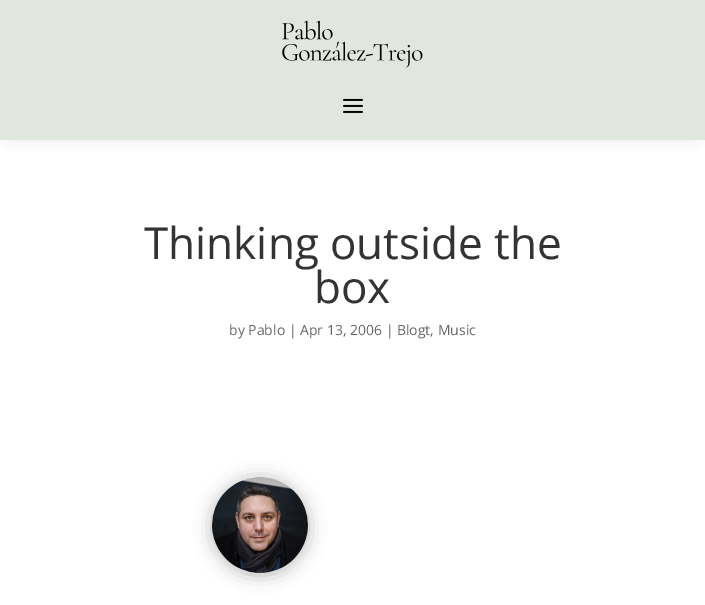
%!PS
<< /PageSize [705 605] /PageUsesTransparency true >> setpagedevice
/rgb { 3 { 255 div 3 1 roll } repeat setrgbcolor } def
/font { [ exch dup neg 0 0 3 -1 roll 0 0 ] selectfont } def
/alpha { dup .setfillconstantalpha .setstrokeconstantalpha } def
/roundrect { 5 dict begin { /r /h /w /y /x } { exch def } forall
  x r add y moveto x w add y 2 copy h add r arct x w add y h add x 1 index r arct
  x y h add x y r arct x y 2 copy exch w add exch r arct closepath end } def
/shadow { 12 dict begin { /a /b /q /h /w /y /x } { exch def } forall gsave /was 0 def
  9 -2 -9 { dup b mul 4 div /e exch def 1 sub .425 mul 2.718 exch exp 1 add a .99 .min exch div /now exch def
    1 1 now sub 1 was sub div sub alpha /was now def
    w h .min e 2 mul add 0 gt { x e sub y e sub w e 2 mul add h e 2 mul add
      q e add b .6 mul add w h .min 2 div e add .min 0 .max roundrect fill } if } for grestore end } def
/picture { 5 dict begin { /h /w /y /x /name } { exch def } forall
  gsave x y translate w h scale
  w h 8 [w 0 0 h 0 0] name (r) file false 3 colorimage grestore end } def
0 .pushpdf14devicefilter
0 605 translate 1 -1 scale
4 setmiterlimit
255 255 255 rgb
0 0 705 605 rectfill
0 0 0 rgb
10 10 685 120 0 10 0.3 shadow
226 231 222 rgb
0 0 705 140 rectfill
(img/1.rgb) 282 20 141 48 picture
(img/2.rgb) 343 98 20 15 picture
0 0 0 rgb
212 479 96 96 48 9 0.3 shadow
(img/3.rgb) 212 477 96 96 picture
/OpenSans-Regular 44 font
51 51 51 rgb
144 259 moveto (Thinking outside the) show
314 303 moveto (box) show
/OpenSans-Regular 14 font
102 102 102 rgb
229 335 moveto (by Pablo | Apr 13, 2006 | Blogt, Music) show
.poppdf14devicefilter showpage
